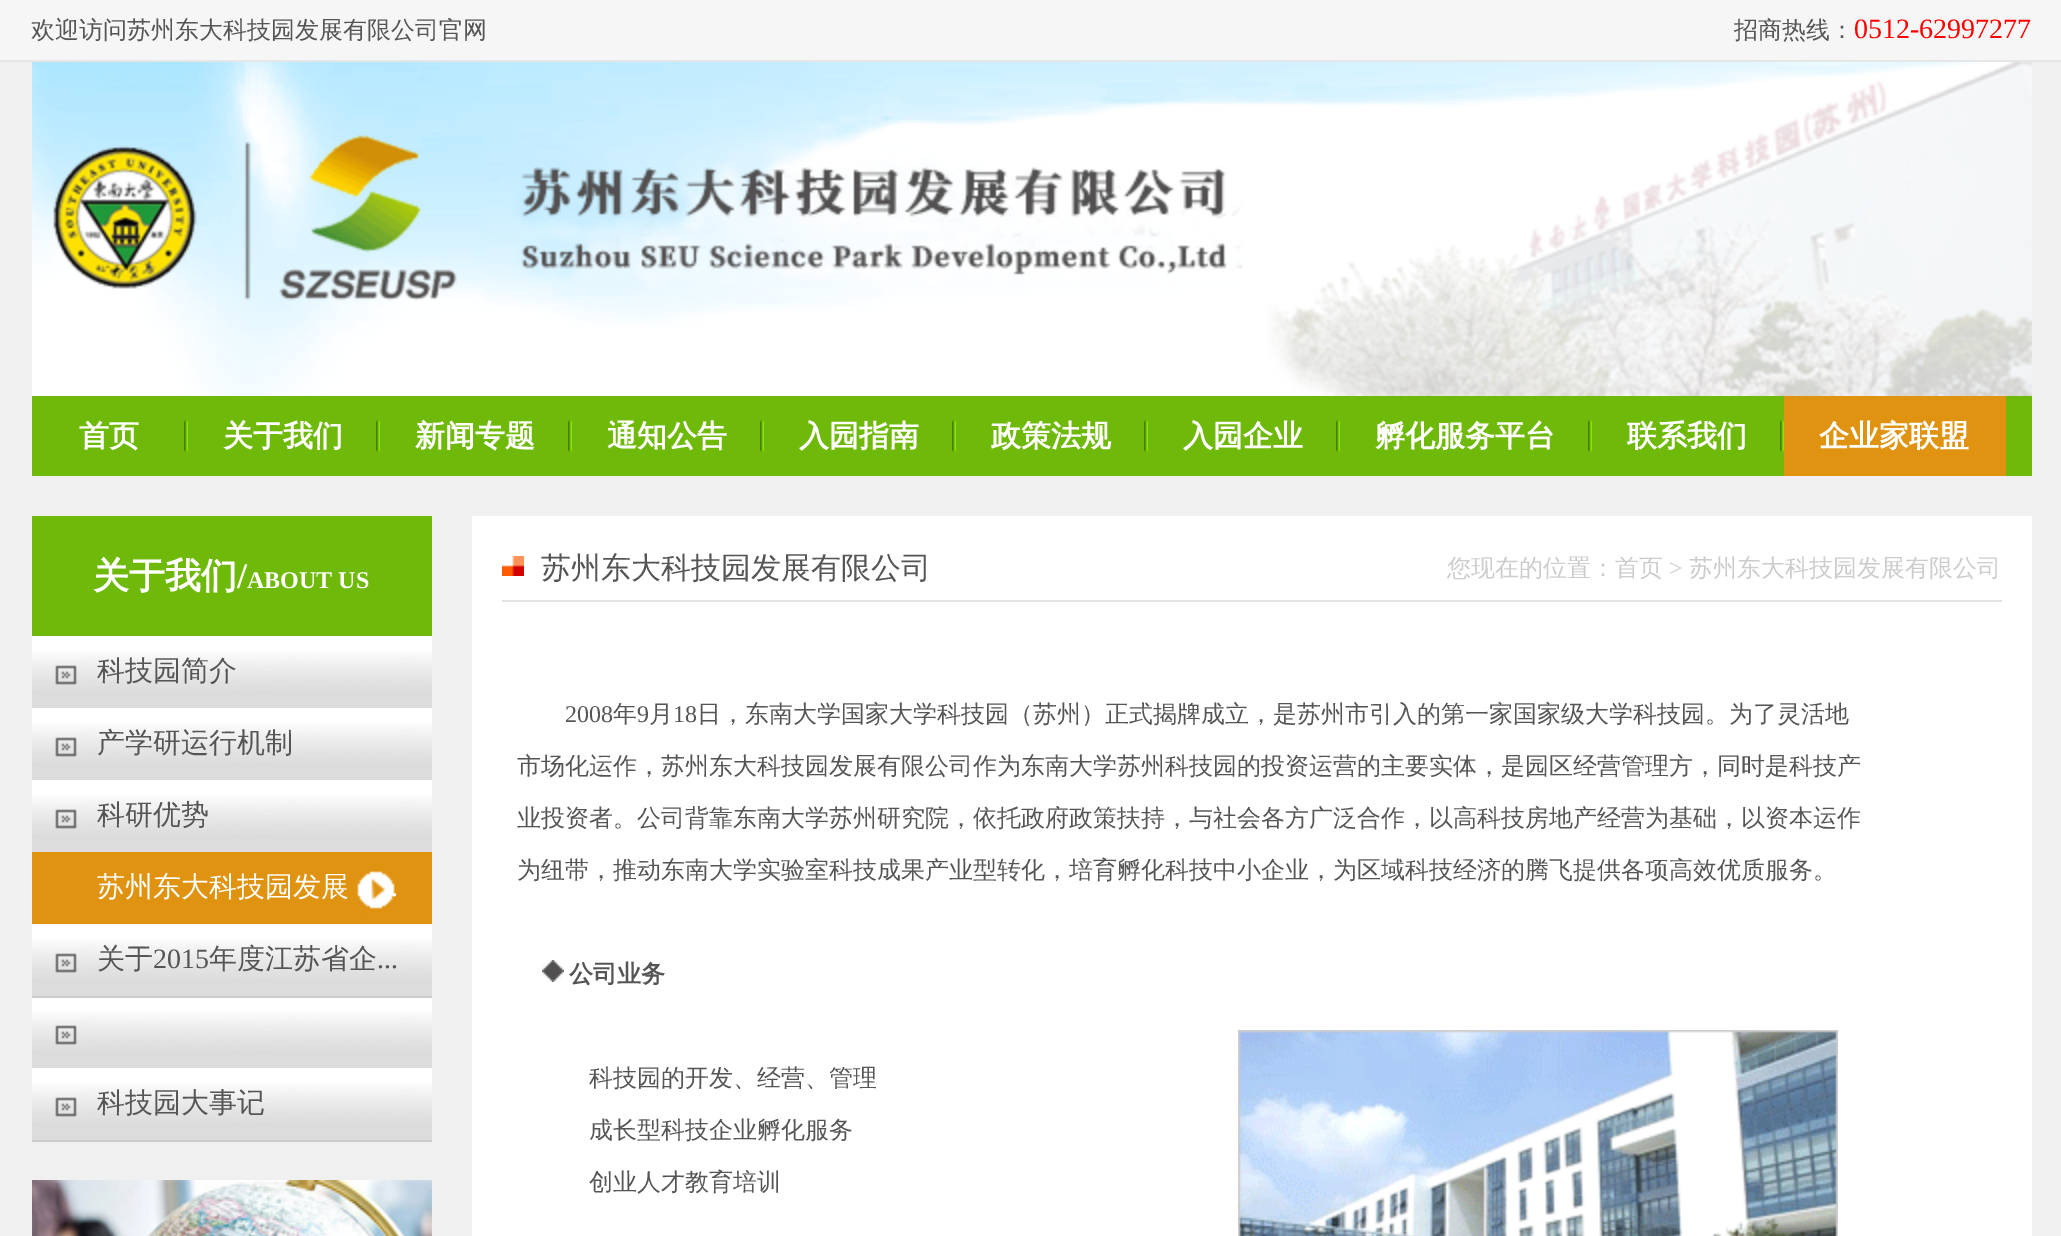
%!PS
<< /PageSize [2061 1236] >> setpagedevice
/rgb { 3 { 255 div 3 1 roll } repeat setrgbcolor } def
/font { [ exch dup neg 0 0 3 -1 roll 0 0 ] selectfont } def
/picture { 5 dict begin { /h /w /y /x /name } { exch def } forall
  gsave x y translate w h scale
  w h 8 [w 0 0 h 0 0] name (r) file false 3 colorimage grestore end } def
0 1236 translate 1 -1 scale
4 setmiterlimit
240 240 240 rgb
0 0 2061 1236 rectfill
[
  [0 0 2061 60 246 246 246]
  [0 60 2061 2 228 230 232]
  [44 62 1988 334 255 255 255]
] { aload pop rgb rectfill } forall
(img/1.rgb) 32 62 1950 334 picture
(img/2.rgb) 1267 62 765 334 picture
110 185 10 rgb
32 396 2000 80 rectfill
(img/3.rgb) 184 420 4 32 picture
(img/3.rgb) 376 420 4 32 picture
(img/3.rgb) 568 420 4 32 picture
(img/3.rgb) 760 420 4 32 picture
(img/3.rgb) 952 420 4 32 picture
(img/3.rgb) 1144 420 4 32 picture
(img/3.rgb) 1336 420 4 32 picture
(img/3.rgb) 1588 420 4 32 picture
(img/3.rgb) 1780 420 4 32 picture
224 147 17 rgb
1784 396 222 80 rectfill
110 185 10 rgb
32 516 400 120 rectfill
(img/4.rgb) 32 636 400 72 picture
(img/4.rgb) 32 708 400 72 picture
(img/4.rgb) 32 780 400 72 picture
(img/5.rgb) 32 852 400 72 picture
(img/4.rgb) 32 924 400 72 picture
(img/6.rgb) 32 998 400 70 picture
204 204 204 rgb
32 996 400 2 rectfill
(img/4.rgb) 32 1068 400 72 picture
32 1140 400 2 rectfill
(img/7.rgb) 32 1180 400 56 picture
255 255 255 rgb
472 516 1560 720 rectfill
227 227 227 rgb
502 600 1500 2 rectfill
(img/8.rgb) 502 556 22 20 picture
(img/9.rgb) 542 960 22 22 picture
(img/10.rgb) 1238 1030 600 206 picture
/WenQuanYiZenHei-Medium 24 font
85 85 85 rgb
31 38 moveto (欢迎访问苏州东大科技园发展有限公司官网) show
1734 38 moveto (招商热线：) show
/LiberationSerif-Regular 28 font
255 0 0 rgb
1854 38 moveto (0512-62997277) show
/WenQuanYiZenHei-Bold 30 font
255 255 255 rgb
[
  [(首页) 79 446]
  [(关于我们) 223 446]
  [(新闻专题) 415 446]
  [(通知公告) 607 446]
  [(入园指南) 799 446]
  [(政策法规) 991 446]
  [(入园企业) 1183 446]
  [(孵化服务平台) 1375 446]
  [(联系我们) 1627 446]
  [(企业家联盟) 1819 446]
] { aload pop moveto show } forall
/WenQuanYiZenHei-Bold 36 font
93 588 moveto (关于我们) show
/LiberationSerif-Bold 36 font
237 588 moveto (/) show
/LiberationSerif-Bold 24 font
247 588 moveto (ABOUT US) show
/WenQuanYiZenHei-Medium 28 font
85 85 85 rgb
[
  [(科技园简介) 97 680]
  [(产学研运行机制) 97 752]
  [(科研优势) 97 824]
] { aload pop moveto show } forall
255 255 255 rgb
97 896 moveto (苏州东大科技园发展) show
/LiberationSerif-Regular 28 font
391 896 moveto (.) show
/WenQuanYiZenHei-Medium 28 font
85 85 85 rgb
97 968 moveto (关于) show
/LiberationSerif-Regular 28 font
153 968 moveto (2015) show
/WenQuanYiZenHei-Medium 28 font
209 968 moveto (年度江苏省企) show
/LiberationSerif-Regular 28 font
377 968 moveto (...) show
/WenQuanYiZenHei-Medium 28 font
97 1112 moveto (科技园大事记) show
/WenQuanYiZenHei-Medium 30 font
541 578 moveto (苏州东大科技园发展有限公司) show
/WenQuanYiZenHei-Medium 24 font
204 204 204 rgb
1447 576 moveto (您现在的位置：首页) show
/LiberationSerif-Regular 24 font
1669 576 moveto (>) show
/WenQuanYiZenHei-Medium 24 font
1689 576 moveto (苏州东大科技园发展有限公司) show
/LiberationSerif-Regular 24 font
85 85 85 rgb
565 722 moveto (2008) show
/WenQuanYiZenHei-Medium 24 font
613 722 moveto (年) show
/LiberationSerif-Regular 24 font
637 722 moveto (9) show
/WenQuanYiZenHei-Medium 24 font
649 722 moveto (月) show
/LiberationSerif-Regular 24 font
673 722 moveto (18) show
/WenQuanYiZenHei-Medium 24 font
[
  [(日，东南大学国家大学科技园（苏州）正式揭牌成立，是苏州市引入的第一家国家级大学科技园。为了灵活地) 697 722]
  [(市场化运作，苏州东大科技园发展有限公司作为东南大学苏州科技园的投资运营的主要实体，是园区经营管理方，同时是科技产) 517 774]
  [(业投资者。公司背靠东南大学苏州研究院，依托政府政策扶持，与社会各方广泛合作，以高科技房地产经营为基础，以资本运作) 517 826]
  [(为纽带，推动东南大学实验室科技成果产业型转化，培育孵化科技中小企业，为区域科技经济的腾飞提供各项高效优质服务。) 517 878]
] { aload pop moveto show } forall
/WenQuanYiZenHei-Bold 24 font
569 982 moveto (公司业务) show
/WenQuanYiZenHei-Medium 24 font
[
  [(科技园的开发、经营、管理) 589 1086]
  [(成长型科技企业孵化服务) 589 1138]
  [(创业人才教育培训) 589 1190]
] { aload pop moveto show } forall
showpage
